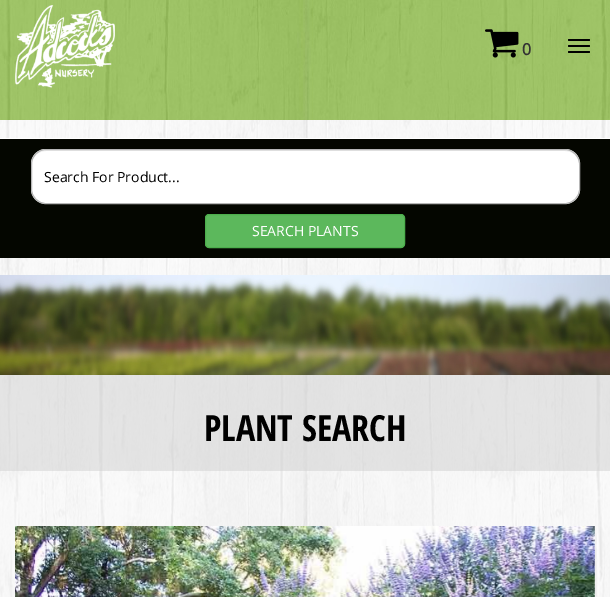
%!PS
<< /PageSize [610 597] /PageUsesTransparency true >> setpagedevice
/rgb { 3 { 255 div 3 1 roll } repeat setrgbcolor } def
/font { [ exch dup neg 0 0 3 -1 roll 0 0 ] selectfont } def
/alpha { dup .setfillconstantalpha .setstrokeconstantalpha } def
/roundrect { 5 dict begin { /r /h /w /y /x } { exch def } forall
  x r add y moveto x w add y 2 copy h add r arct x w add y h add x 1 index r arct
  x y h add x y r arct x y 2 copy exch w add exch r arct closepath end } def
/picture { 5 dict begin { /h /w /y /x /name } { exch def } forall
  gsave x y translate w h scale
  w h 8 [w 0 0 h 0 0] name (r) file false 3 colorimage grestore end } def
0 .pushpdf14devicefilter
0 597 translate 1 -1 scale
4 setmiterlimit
253 253 253 rgb
0 0 610 597 rectfill
(img/1.rgb) 0 120 610 477 picture
(img/2.rgb) 0 0 610 120 picture
(img/3.rgb) 15 5 100 83 picture
(img/4.rgb) 485 29 34 29 picture
4 6 0 rgb
0 139 610 119 rectfill
255 255 255 rgb
0 138 610 1 rectfill
0 0 0 rgb
568 39 22 2 1 roundrect fill
568 45 22 2 1 roundrect fill
568 51 22 2 1 roundrect fill
255 255 255 rgb
31 149 549 55 15 roundrect fill
236 236 236 rgb
46 151 moveto 565 151 lineto 573 151 579 157 579 165 curveto 579 164 lineto 579 156 573 150 565 150 curveto 46 150 lineto 38 150 32 156 32 164 curveto 32 165 lineto 32 157 38 151 46 151 curveto closepath fill
183 183 183 rgb
31.5 149.5 548 54 14.5 roundrect stroke
92 184 92 rgb
205.5 214.5 199 33 3.5 roundrect gsave fill grestore
76 174 76 rgb
stroke
(img/5.rgb) 0 275 610 100 picture
0.5 alpha
207 207 207 rgb
0 375 610 96 rectfill
1 alpha
(img/6.rgb) 15 526 580 71 picture
/OpenSans-Bold 16 font
51 51 51 rgb
522 55 moveto (0) show
/OpenSans-Regular 14 font
0 0 0 rgb
44 182 moveto (Search For Product...) show
255 255 255 rgb
252 236 moveto (SEARCH PLANTS) show
/OpenSansCondensed-Bold 36 font
0 0 0 rgb
204 441 moveto (PLANT SEARCH) show
.poppdf14devicefilter showpage
